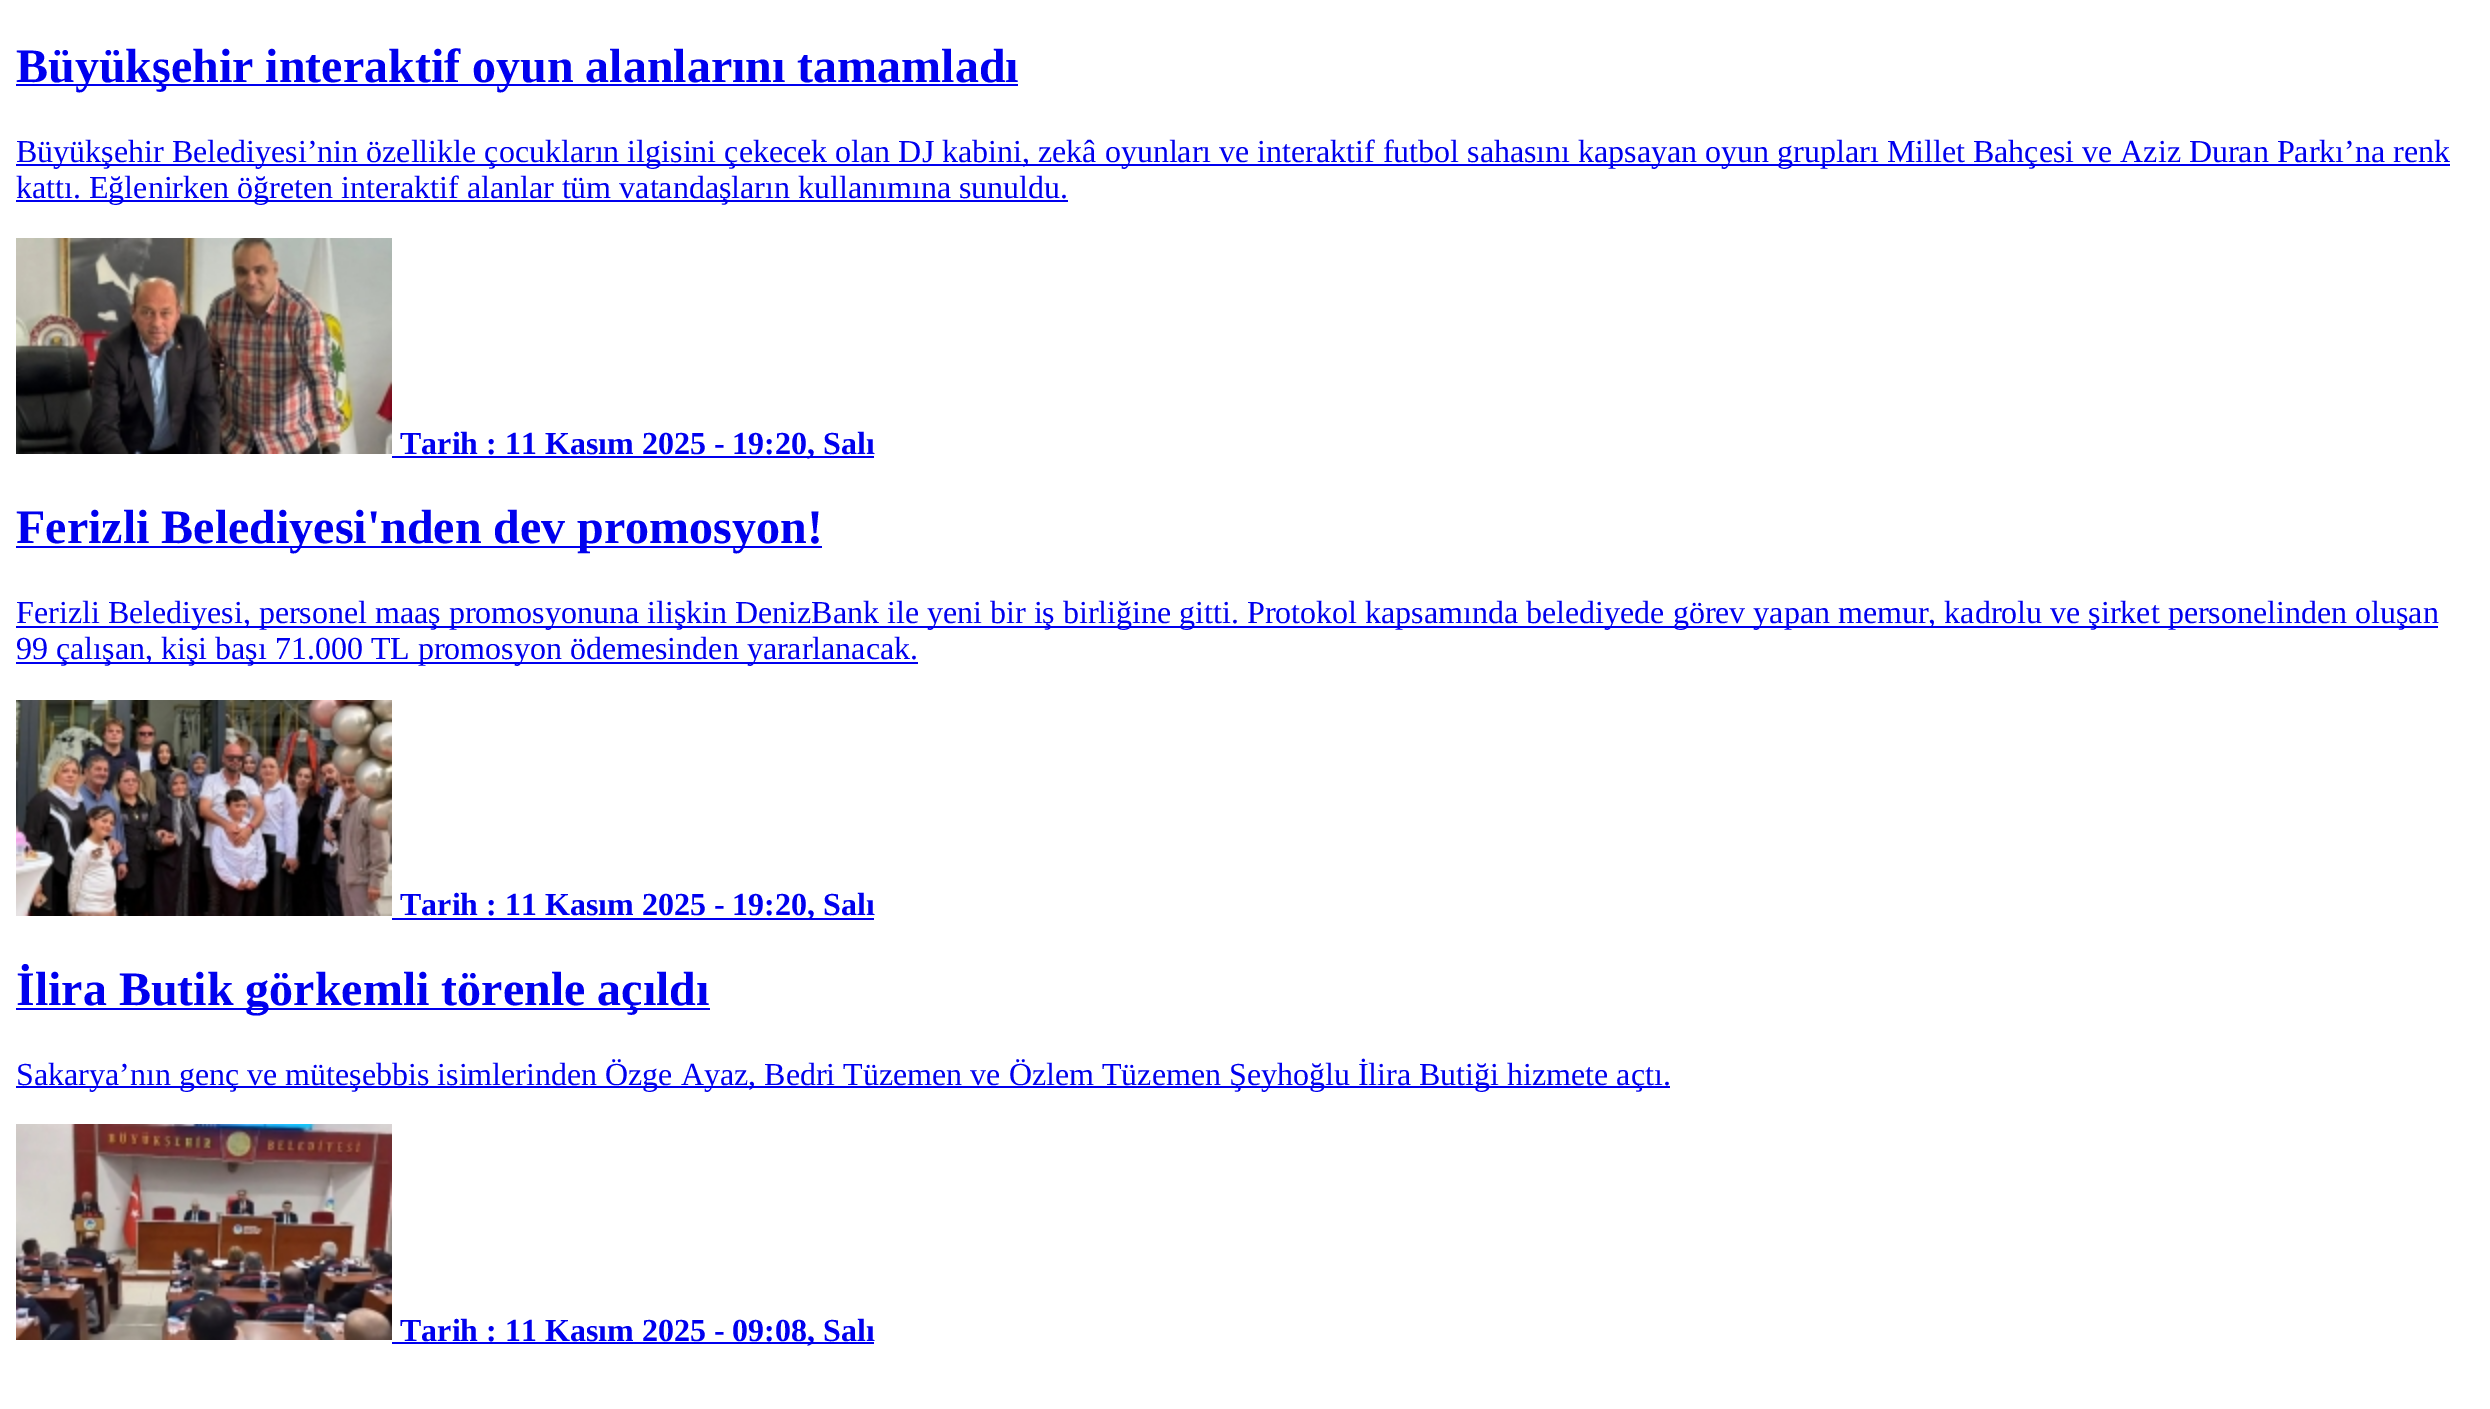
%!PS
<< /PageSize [2490 1409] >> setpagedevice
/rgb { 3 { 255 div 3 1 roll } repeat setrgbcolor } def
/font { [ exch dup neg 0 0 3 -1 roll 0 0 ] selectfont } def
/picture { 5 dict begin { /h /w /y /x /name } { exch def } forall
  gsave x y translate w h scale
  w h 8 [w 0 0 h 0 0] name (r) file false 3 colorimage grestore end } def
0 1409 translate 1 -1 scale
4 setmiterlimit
255 255 255 rgb
0 0 2490 1409 rectfill
[
  [16 84 1002 2 0 0 238]
  [16 164 2434 2 0 0 238]
  [16 200 1052 2 0 0 238]
] { aload pop rgb rectfill } forall
(img/1.rgb) 16 238 376 216 picture
[
  [392 456 482 2 0 0 238]
  [16 546 806 2 0 0 238]
  [16 626 2422 2 0 0 238]
  [16 662 902 2 0 0 238]
] { aload pop rgb rectfill } forall
(img/2.rgb) 16 700 376 216 picture
[
  [392 918 482 2 0 0 238]
  [16 1008 694 2 0 0 238]
  [16 1086 1654 2 0 0 238]
] { aload pop rgb rectfill } forall
(img/3.rgb) 16 1124 376 216 picture
392 1342 482 2 rectfill
/LiberationSerif-Bold 48 font
16 82 moveto (Büyükşehir interaktif oyun alanlarını tamamladı) show
/LiberationSerif-Regular 32 font
16 162 moveto (Büyükşehir Belediyesi’nin özellikle çocukların ilgisini çekecek olan DJ kabini, zekâ oyunları ve interaktif futbol sahasını kapsayan oyun grupları Millet Bahçesi ve Aziz Duran Parkı’na renk) show
16 198 moveto (kattı. Eğlenirken öğreten interaktif alanlar tüm vatandaşların kullanımına sunuldu.) show
/LiberationSerif-Bold 32 font
400 454 moveto (Tarih : 11 Kasım 2025 - 19:20, Salı) show
/LiberationSerif-Bold 48 font
16 543 moveto (Ferizli Belediyesi'nden dev promosyon!) show
/LiberationSerif-Regular 32 font
16 623 moveto (Ferizli Belediyesi, personel maaş promosyonuna ilişkin DenizBank ile yeni bir iş birliğine gitti. Protokol kapsamında belediyede görev yapan memur, kadrolu ve şirket personelinden oluşan) show
16 659 moveto (99 çalışan, kişi başı 71.000 TL promosyon ödemesinden yararlanacak.) show
/LiberationSerif-Bold 32 font
400 915 moveto (Tarih : 11 Kasım 2025 - 19:20, Salı) show
/LiberationSerif-Bold 48 font
16 1005 moveto (İlira Butik görkemli törenle açıldı) show
/LiberationSerif-Regular 32 font
16 1085 moveto (Sakarya’nın genç ve müteşebbis isimlerinden Özge Ayaz, Bedri Tüzemen ve Özlem Tüzemen Şeyhoğlu İlira Butiği hizmete açtı.) show
/LiberationSerif-Bold 32 font
400 1341 moveto (Tarih : 11 Kasım 2025 - 09:08, Salı) show
showpage
